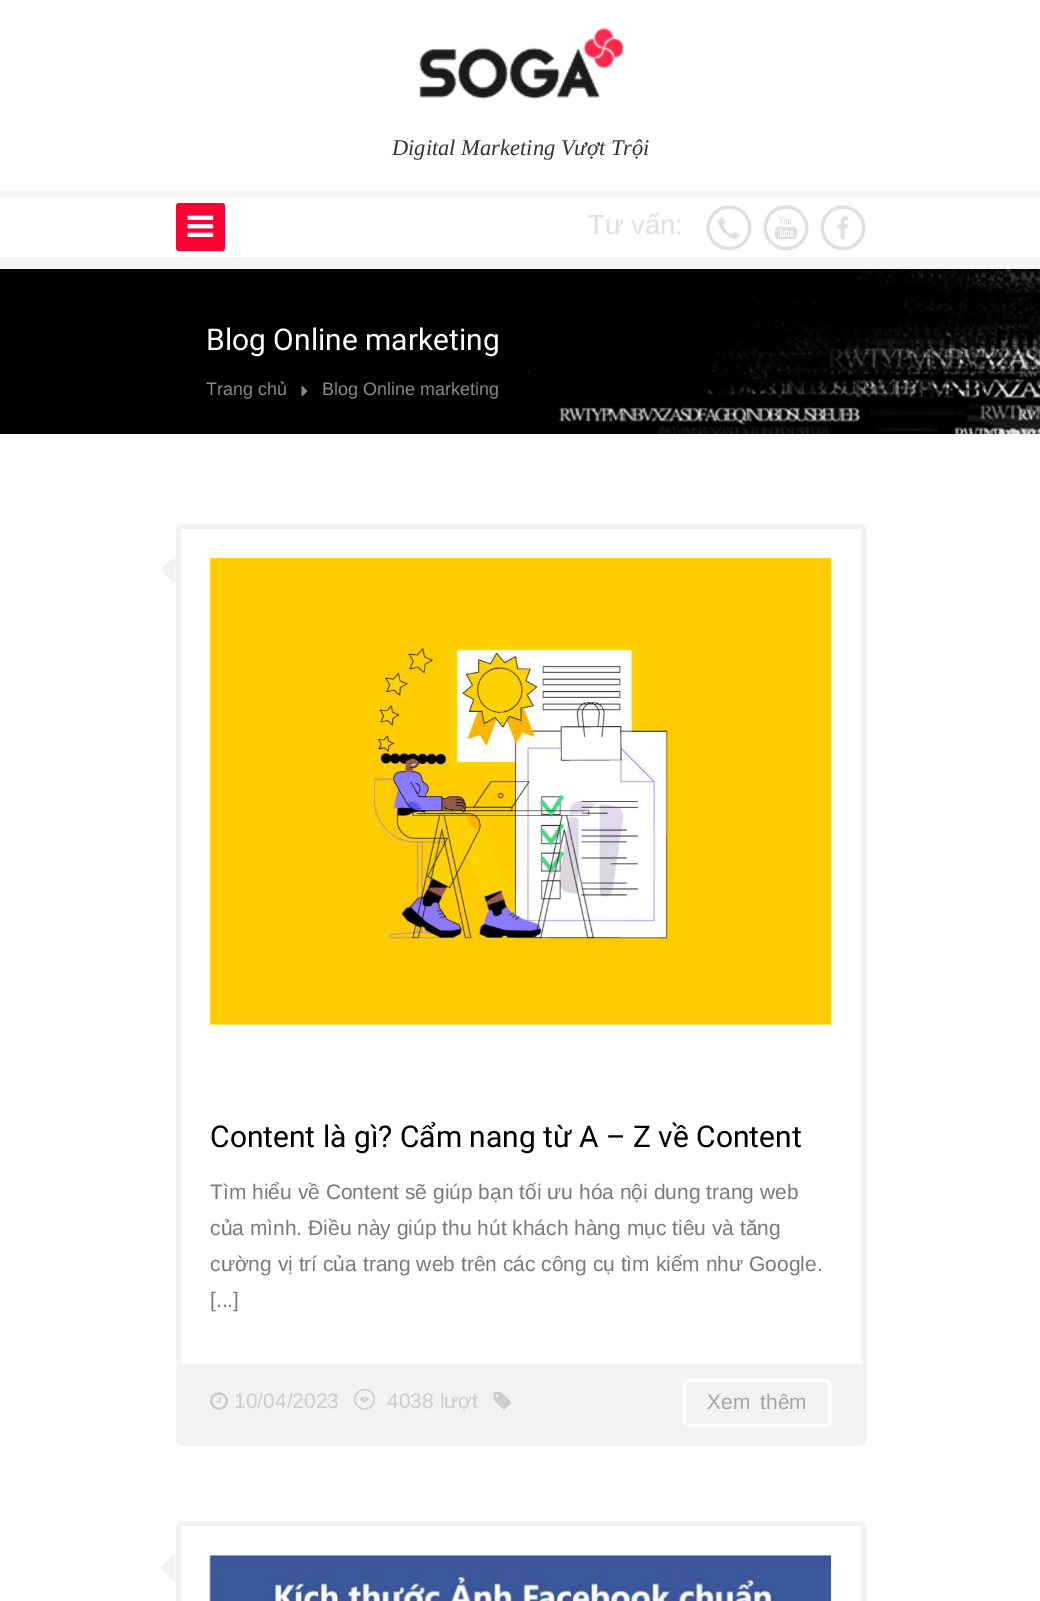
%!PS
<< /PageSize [1040 1601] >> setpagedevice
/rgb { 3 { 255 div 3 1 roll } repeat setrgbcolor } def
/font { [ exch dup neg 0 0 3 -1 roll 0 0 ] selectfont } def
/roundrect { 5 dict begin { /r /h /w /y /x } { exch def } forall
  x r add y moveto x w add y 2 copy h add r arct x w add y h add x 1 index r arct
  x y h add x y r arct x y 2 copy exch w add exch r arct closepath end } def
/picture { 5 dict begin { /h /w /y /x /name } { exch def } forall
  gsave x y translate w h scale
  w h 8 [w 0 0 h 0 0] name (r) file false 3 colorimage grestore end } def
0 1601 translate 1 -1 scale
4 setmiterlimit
255 255 255 rgb
0 0 1040 1601 rectfill
(img/1.rgb) 419 28 204 72 picture
245 245 245 rgb
0 191 1040 6 rectfill
0 257 1040 12 rectfill
254 0 50 rgb
176 203 49 48 3 roundrect fill
(img/2.rgb) 187 215 27 22 picture
(img/3.rgb) 706 205 46 46 picture
(img/4.rgb) 763 205 46 46 picture
(img/5.rgb) 820 205 46 46 picture
(img/6.rgb) 0 269 1040 165 picture
(img/7.rgb) 301 386 7 11 picture
242 242 242 rgb
5 setlinewidth
178.5 526.5 685 917 3.5 roundrect stroke
175.5 555 moveto 175.5 585 lineto 160.5 570 lineto closepath fill
(img/8.rgb) 209 557 623 468 picture
181 1364 680 77 rectfill
(img/9.rgb) 210 1392 18 18 picture
(img/10.rgb) 354 1388 21 22 picture
(img/11.rgb) 493 1392 19 18 picture
255 255 255 rgb
3 setlinewidth
684.5 1380.5 145 45 4.5 roundrect stroke
242 242 242 rgb
5 setlinewidth
178.5 1523.5 685 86 3.5 roundrect stroke
175.5 1552.5 moveto 175.5 1582.5 lineto 160.5 1567.5 lineto closepath fill
(img/12.rgb) 209 1555 622 46 picture
/LiberationSerif-Italic 22.5 font
51 51 51 rgb
392 155 moveto (Digital Marketing Vượt Trội) show
/LiberationSans-Regular 27.5 font
224 224 224 rgb
588 234 moveto (Tư vấn:) show
/Roboto-Regular 30 font
255 255 255 rgb
206 350 moveto (Blog Online marketing) show
/LiberationSans-Regular 18 font
139 139 139 rgb
206 395 moveto (Trang chủ) show
322 395 moveto (Blog Online marketing) show
/Roboto-Regular 30 font
0 0 0 rgb
210 1147 moveto (Content là gì? Cẩm nang từ A – Z về Content) show
/LiberationSans-Regular 21 font
122 122 122 rgb
[
  [(Tìm hiểu về Content sẽ giúp bạn tối ưu hóa nội dung trang web) 210 1199]
  [(của mình. Điều này giúp thu hút khách hàng mục tiêu và tăng) 210 1235]
  [(cường vị trí của trang web trên các công cụ tìm kiếm như Google.) 210 1271]
  [([...]) 210 1307]
] { aload pop moveto show } forall
205 205 205 rgb
234 1408 moveto (10/04/2023) show
387 1408 moveto (4038 lượt) show
164 164 164 rgb
707 1409 moveto 4 0 32 (Xem thêm) widthshow
showpage
